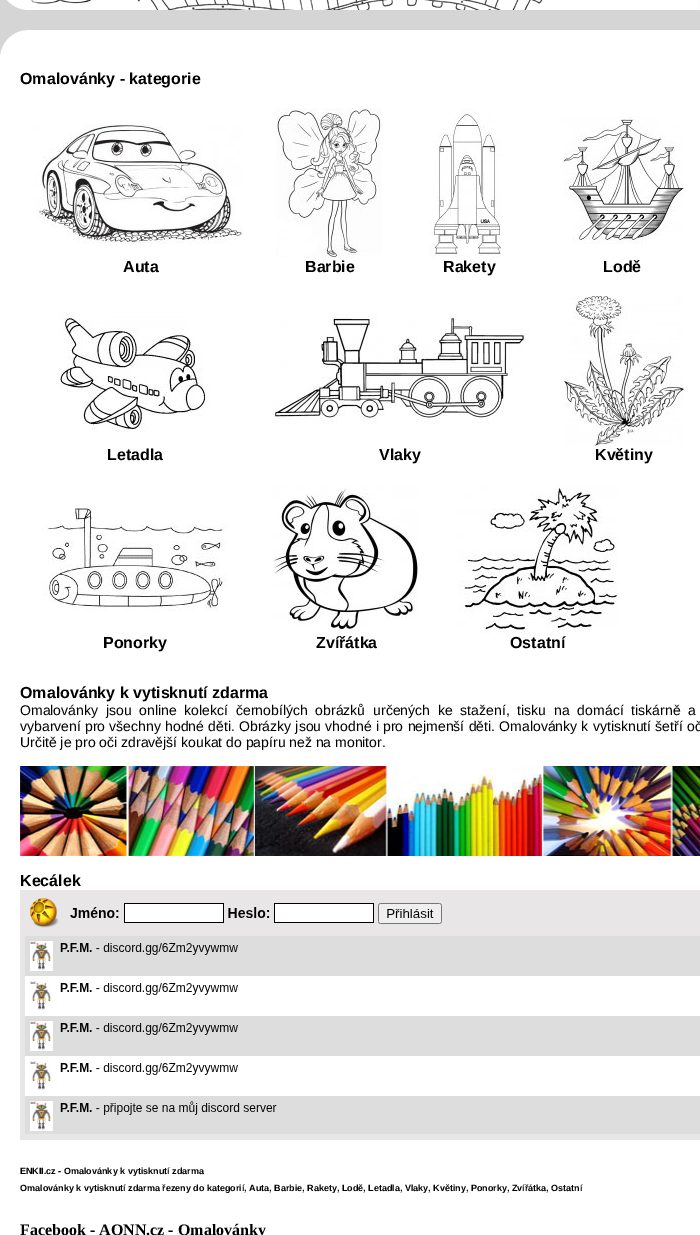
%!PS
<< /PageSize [700 1235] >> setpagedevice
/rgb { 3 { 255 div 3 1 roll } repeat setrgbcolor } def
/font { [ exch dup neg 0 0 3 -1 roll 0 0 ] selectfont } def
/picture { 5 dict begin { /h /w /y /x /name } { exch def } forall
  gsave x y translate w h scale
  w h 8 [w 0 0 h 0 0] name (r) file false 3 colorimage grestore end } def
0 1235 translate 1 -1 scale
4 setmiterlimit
213 213 213 rgb
0 0 700 1235 rectfill
(img/1.rgb) 7 0 693 10 picture
(img/2.rgb) 0 30 700 30 picture
255 255 255 rgb
0 60 700 1175 rectfill
(img/3.rgb) 35 124 208 120 picture
(img/4.rgb) 276 108 106 150 picture
(img/5.rgb) 429 108 72 150 picture
(img/6.rgb) 562 116 122 128 picture
(img/7.rgb) 59 312 152 120 picture
(img/8.rgb) 273 312 256 112 picture
(img/9.rgb) 564 296 120 150 picture
(img/10.rgb) 43 508 184 104 picture
(img/11.rgb) 273 485 147 149 picture
(img/12.rgb) 458 484 160 150 picture
(img/13.rgb) 20 766 680 90 picture
(img/14.rgb) 20 890 680 250 picture
/LiberationSans-Bold 16 font
0 0 0 rgb
[
  [(Omalovánky - kategorie) 20 84]
  [(Auta) 123 272]
  [(Barbie) 305 272]
  [(Rakety) 443 272]
  [(Lodě) 603 272]
  [(Letadla) 107 460]
  [(Vlaky) 379 460]
  [(Květiny) 595 460]
  [(Ponorky) 103 648]
  [(Zvířátka) 316 648]
  [(Ostatní) 510 648]
  [(Omalovánky k vytisknutí zdarma) 20 698]
] { aload pop moveto show } forall
/LiberationSans-Regular 14 font
20 715 moveto 4 0 32 (Omalovánky jsou online kolekcí černobílých obrázků určených ke stažení, tisku na domácí tiskárně a) widthshow
20 731 moveto 0.4 0 32 (vybarvení pro všechny hodné děti. Obrázky jsou vhodné i pro nejmenší děti. Omalovánky k vytisknutí šetří oč) widthshow
20 747 moveto (Určitě je pro oči zdravější koukat do papíru než na monitor.) show
/LiberationSans-Bold 16 font
20 886 moveto (Kecálek) show
/LiberationSans-Bold 9 font
20 1174 moveto (ENKII.cz - Omalovánky k vytisknutí zdarma) show
20 1191 moveto (Omalovánky k vytisknutí zdarma řezeny do kategorií, Auta, Barbie, Rakety, Lodě, Letadla, Vlaky, Květiny, Ponorky, Zvířátka, Ostatní) show
/LiberationSerif-Bold 16 font
20 1235 moveto (Facebook - AONN.cz - Omalovánky) show
showpage
